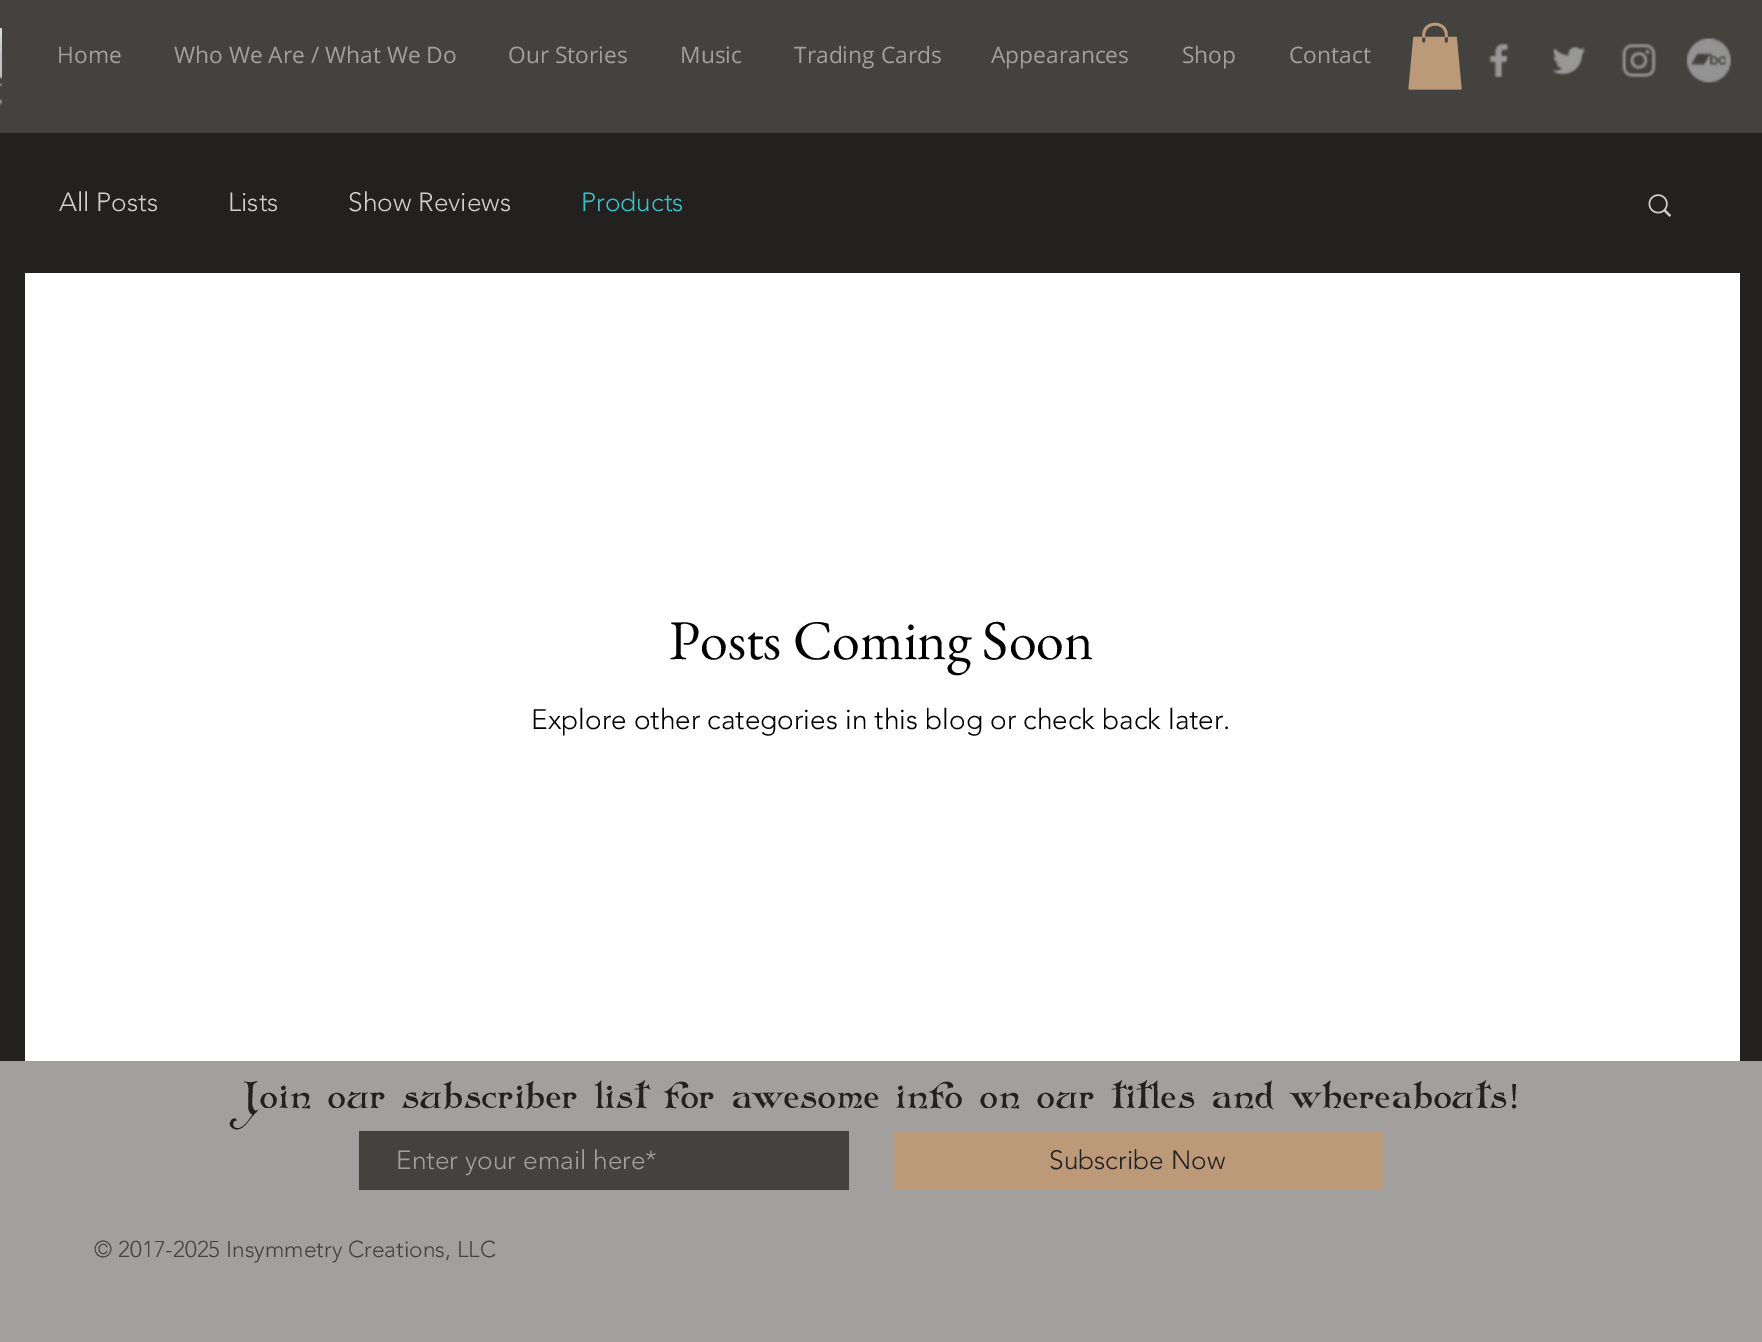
%!PS
<< /PageSize [1762 1342] >> setpagedevice
/rgb { 3 { 255 div 3 1 roll } repeat setrgbcolor } def
/font { [ exch dup neg 0 0 3 -1 roll 0 0 ] selectfont } def
/picture { 5 dict begin { /h /w /y /x /name } { exch def } forall
  gsave x y translate w h scale
  w h 8 [w 0 0 h 0 0] name (r) file false 3 colorimage grestore end } def
0 1342 translate 1 -1 scale
4 setmiterlimit
34 33 32 rgb
0 0 1762 1342 rectfill
67 66 63 rgb
0 0 1762 133 rectfill
(img/1.rgb) 0 28 2 77 picture
(img/2.rgb) 1408 22 54 68 picture
(img/3.rgb) 1488 43 21 35 picture
(img/4.rgb) 1552 46 34 30 picture
(img/5.rgb) 1621 43 36 35 picture
(img/6.rgb) 1686 38 46 45 picture
(img/7.rgb) 1648 194 24 23 picture
[
  [25 273 1715 788 255 255 255]
  [0 1061 1762 281 161 160 158]
  [359 1131 490 59 67 66 63]
  [893 1131 490 59 188 153 121]
] { aload pop rgb rectfill } forall
/OpenSans-Regular 22.75 font
161 160 158 rgb
[
  [(Home) 57 63]
  [(Who We Are / What We Do) 174 63]
  [(Our Stories) 508 63]
  [(Music) 680 63]
  [(Trading Cards) 794 63]
  [(Appearances) 991 63]
  [(Shop) 1182 63]
  [(Contact) 1289 63]
] { aload pop moveto show } forall
/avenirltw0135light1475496-Light 26.25 font
208 207 205 rgb
[
  [(All Posts) 59 211]
  [(Lists) 228 211]
  [(Show Reviews) 348 211]
] { aload pop moveto show } forall
58 192 199 rgb
581 211 moveto (Products) show
/EBGaramond-Regular 56 font
0 0 0 rgb
669 659 moveto (Posts Coming Soon) show
/avenirltw0135light1475496-Light 28 font
531 729 moveto (Explore other categories in this blog or check back later.) show
/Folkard-Regular 36.75 font
34 33 32 rgb
244 1108 moveto 1.47 0 (Join our subscriber list for awesome info on our titles and whereabouts) ashow
/LiberationSerif-Regular 36.75 font
1508 1108 moveto 1.47 0 (!) ashow
/avenirltw0135light1475496-Light 26.25 font
161 160 158 rgb
396 1169 moveto (Enter your email here*) show
34 33 32 rgb
1049 1169 moveto (Subscribe Now) show
/avenirltw0135light1475496-Light 22.75 font
67 66 63 rgb
94 1257 moveto (© 2017-2025 Insymmetry Creations, LLC) show
showpage
